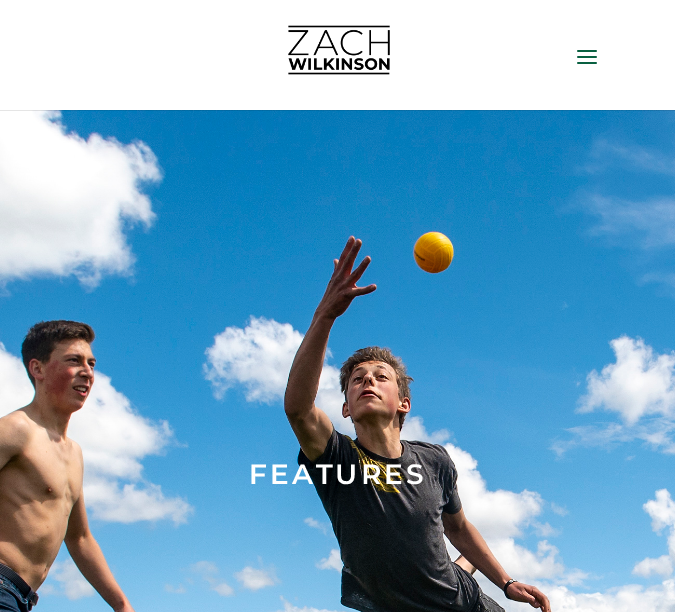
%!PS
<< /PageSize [675 612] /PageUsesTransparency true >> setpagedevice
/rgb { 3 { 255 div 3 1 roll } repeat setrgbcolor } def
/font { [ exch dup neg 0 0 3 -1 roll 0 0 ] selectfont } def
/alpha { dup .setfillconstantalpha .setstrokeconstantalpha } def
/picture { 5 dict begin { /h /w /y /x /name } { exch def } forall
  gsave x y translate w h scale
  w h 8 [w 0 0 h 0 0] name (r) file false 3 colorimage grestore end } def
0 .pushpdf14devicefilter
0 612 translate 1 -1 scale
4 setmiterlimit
255 255 255 rgb
0 0 675 612 rectfill
(img/3.rgb) 0 110 675 502 picture
0.1 alpha
0 0 0 rgb
0 110 675 1 rectfill
1 alpha
(img/1.rgb) 288 25 102 50 picture
(img/2.rgb) 577 50 20 14 picture
/Montserrat-SemiBold 28 font
255 255 255 rgb
249 484 moveto 3 0 (FEATURES) ashow
.poppdf14devicefilter showpage
